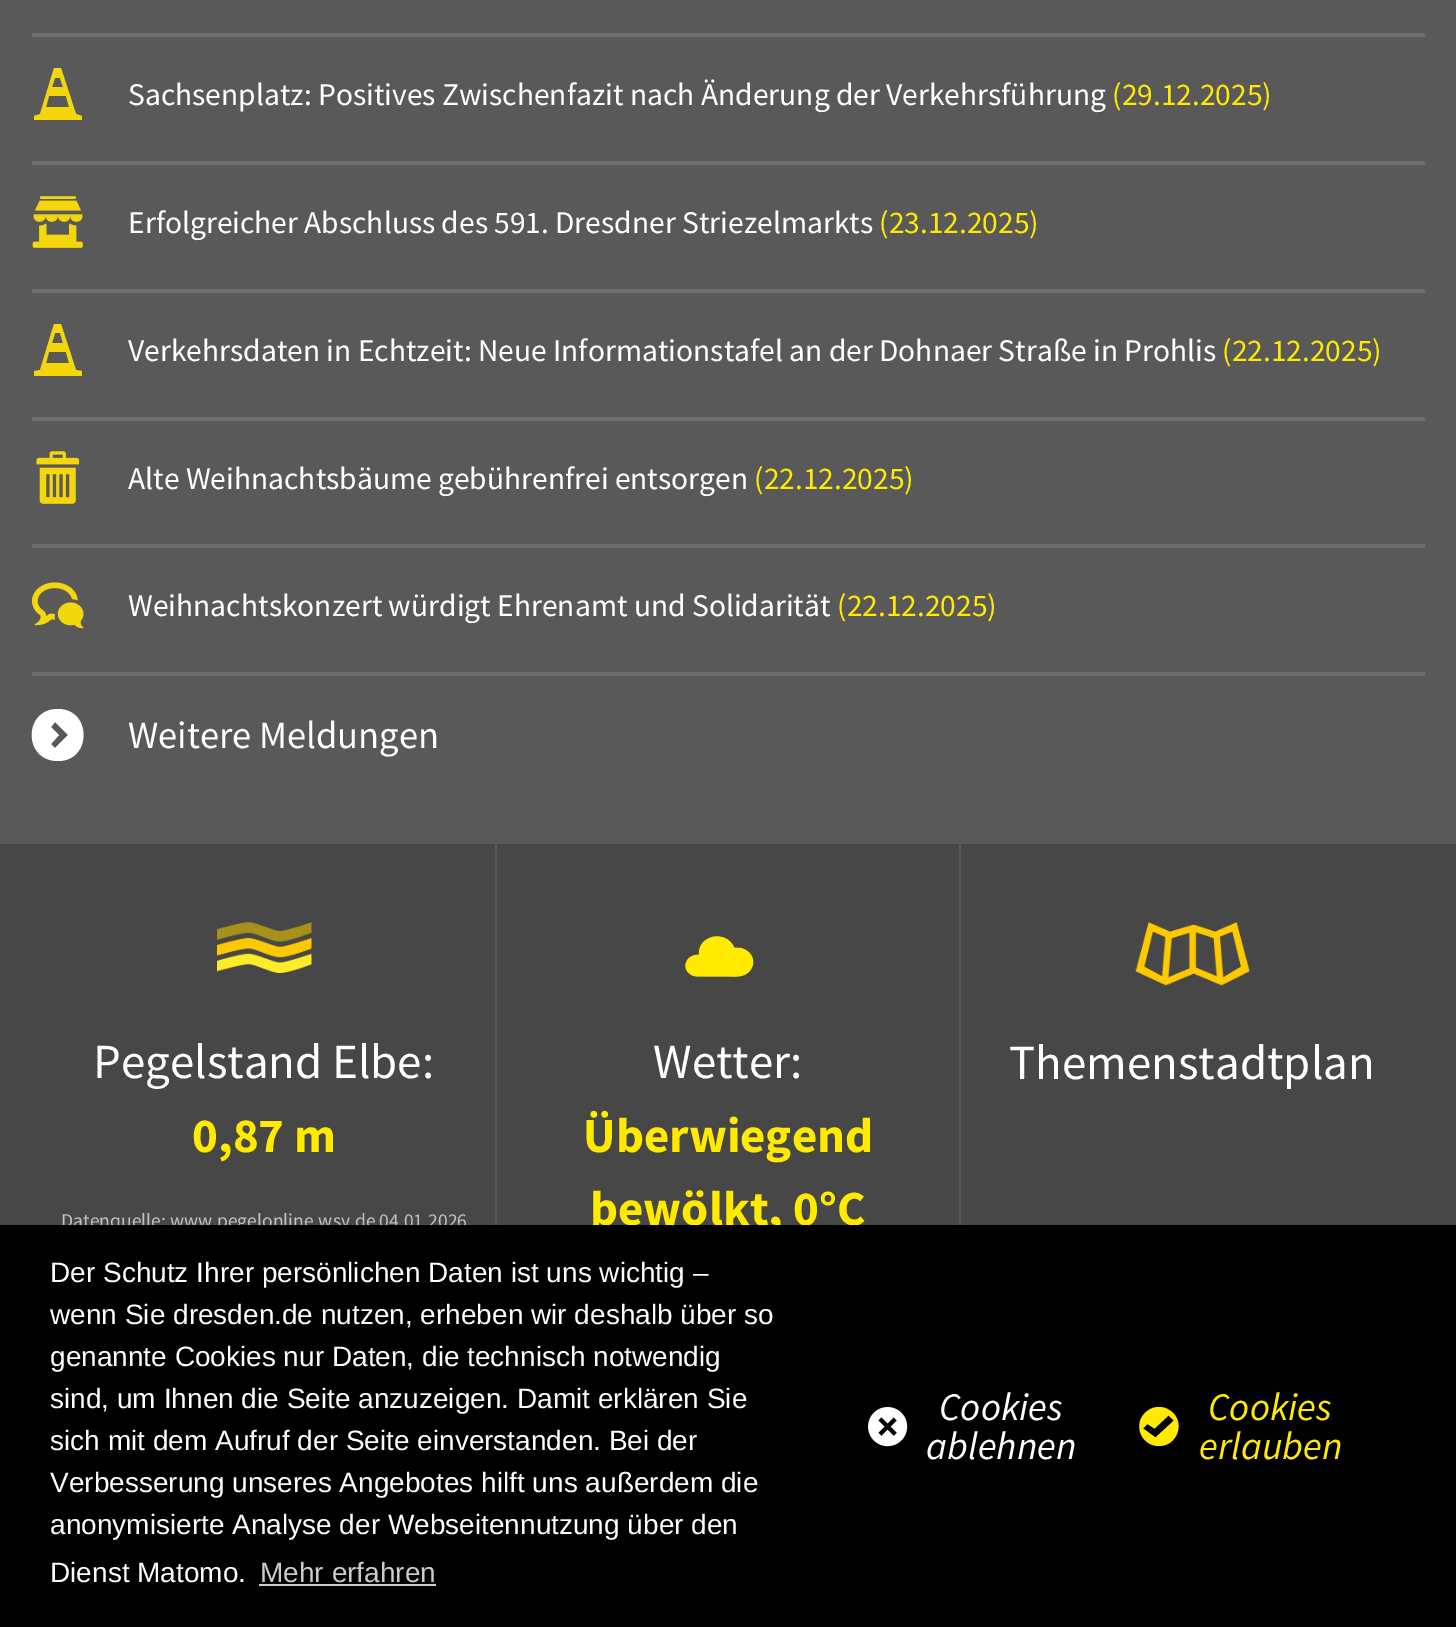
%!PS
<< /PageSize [1456 1627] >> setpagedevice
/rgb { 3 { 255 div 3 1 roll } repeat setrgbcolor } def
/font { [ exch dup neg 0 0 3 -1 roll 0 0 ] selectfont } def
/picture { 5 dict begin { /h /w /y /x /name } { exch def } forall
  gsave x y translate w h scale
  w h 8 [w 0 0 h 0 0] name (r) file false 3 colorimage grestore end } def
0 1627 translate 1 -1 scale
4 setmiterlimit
89 89 89 rgb
0 0 1456 1627 rectfill
109 109 109 rgb
32 33 1393 4 rectfill
32 161 1393 4 rectfill
244 214 13 rgb
76 114 moveto 61 68 lineto 54 68 lineto 40 114 lineto 34 116 lineto 34 120 lineto 82 120 lineto 82 116 lineto closepath 55 78 moveto 60 78 lineto 63 87 lineto 52 87 lineto closepath 66 96 moveto 69 107 lineto 46 107 lineto 49 96 lineto closepath fill
109 109 109 rgb
32 289 1393 4 rectfill
(img/1.rgb) 32 196 51 52 picture
32 417 1393 4 rectfill
244 214 13 rgb
76 370 moveto 61 324 lineto 54 324 lineto 40 370 lineto 34 371 lineto 34 376 lineto 82 376 lineto 82 371 lineto closepath 55 333 moveto 60 333 lineto 63 343 lineto 52 343 lineto closepath 66 352 moveto 69 363 lineto 46 363 lineto 49 352 lineto closepath fill
109 109 109 rgb
32 544 1393 4 rectfill
(img/2.rgb) 36 451 44 53 picture
32 672 1393 4 rectfill
(img/3.rgb) 32 582 52 47 picture
255 255 255 rgb
58 709 moveto 23 709 23 761 58 761 curveto 92 761 92 709 58 709 curveto closepath 55 748 moveto 51 744 lineto 59 735 lineto 51 727 lineto 55 722 lineto 68 735 lineto closepath fill
71 71 71 rgb
0 844 1456 381 rectfill
(img/4.rgb) 217 922 95 51 picture
89 89 89 rgb
959 844 2 381 rectfill
495 844 2 381 rectfill
(img/5.rgb) 685 936 69 41 picture
(img/6.rgb) 1135 922 115 64 picture
/SourceSansPro-Regular 31.5 font
255 255 255 rgb
128 105 moveto (Sachsenplatz: Positives Zwischenfazit nach Änderung der Verkehrsführung) show
255 234 0 rgb
1112 105 moveto (\(29.12.2025\)) show
255 255 255 rgb
128 233 moveto (Erfolgreicher Abschluss des 591. Dresdner Striezelmarkts) show
255 234 0 rgb
879 233 moveto (\(23.12.2025\)) show
255 255 255 rgb
128 361 moveto (Verkehrsdaten in Echtzeit: Neue Informationstafel an der Dohnaer Straße in Prohlis) show
255 234 0 rgb
1222 361 moveto (\(22.12.2025\)) show
255 255 255 rgb
128 489 moveto (Alte Weihnachtsbäume gebührenfrei entsorgen) show
255 234 0 rgb
754 489 moveto (\(22.12.2025\)) show
255 255 255 rgb
128 616 moveto (Weihnachtskonzert würdigt Ehrenamt und Solidarität) show
255 234 0 rgb
837 616 moveto (\(22.12.2025\)) show
/SourceSansPro-Regular 38.5 font
255 255 255 rgb
128 748 moveto (Weitere Meldungen) show
/SourceSansPro-Regular 49 font
93 1078 moveto (Pegelstand Elbe:) show
/SourceSansPro-Bold 49 font
255 234 0 rgb
192 1152 moveto (0,87 m) show
/SourceSansPro-Regular 19.6 font
194 194 194 rgb
61 1227 moveto (Datenquelle: www.pegelonline.wsv.de 04.01.2026) show
/SourceSansPro-Regular 49 font
255 255 255 rgb
653 1078 moveto (Wetter:) show
/SourceSansPro-Bold 49 font
255 234 0 rgb
583 1152 moveto (Überwiegend) show
590 1225 moveto (bewölkt, 0°C) show
/SourceSansPro-Regular 49 font
255 255 255 rgb
1009 1079 moveto (Themenstadtplan) show
0 0 0 rgb
0 1225 1456 402 rectfill
/LiberationSans-Regular 28 font
255 255 255 rgb
[
  [(Der Schutz Ihrer persönlichen Daten ist uns wichtig –) 50 1282]
  [(wenn Sie dresden.de nutzen, erheben wir deshalb über so) 50 1324]
  [(genannte Cookies nur Daten, die technisch notwendig) 50 1366]
  [(sind, um Ihnen die Seite anzuzeigen. Damit erklären Sie) 50 1408]
  [(sich mit dem Aufruf der Seite einverstanden. Bei der) 50 1450]
  [(Verbesserung unseres Angebotes hilft uns außerdem die) 50 1492]
  [(anonymisierte Analyse der Webseitennutzung über den) 50 1534]
  [(Dienst Matomo.) 50 1582]
] { aload pop moveto show } forall
204 204 204 rgb
260 1582 moveto (Mehr erfahren) show
259 1584 177 2 rectfill
(img/7.rgb) 868 1407 40 40 picture
/SourceSansPro-Italic 39 font
255 255 255 rgb
939 1420 moveto (Cookies) show
926 1459 moveto (ablehnen) show
255 234 0 rgb
1159 1407 moveto 1155 1407 1151 1408 1148 1410.5 curveto 1132 1421 1139.5 1446 1159 1446 curveto 1178 1446 1186 1421 1170 1410.5 curveto 1166.5 1408 1163 1407 1159 1407 curveto closepath 1154.5 1428.5 moveto 1168.5 1415.5 lineto 1174 1420.5 lineto 1155.5 1437.5 lineto 1143 1428.5 lineto 1147.5 1424 lineto closepath fill
1208 1420 moveto (Cookies) show
1199 1459 moveto (erlauben) show
showpage
